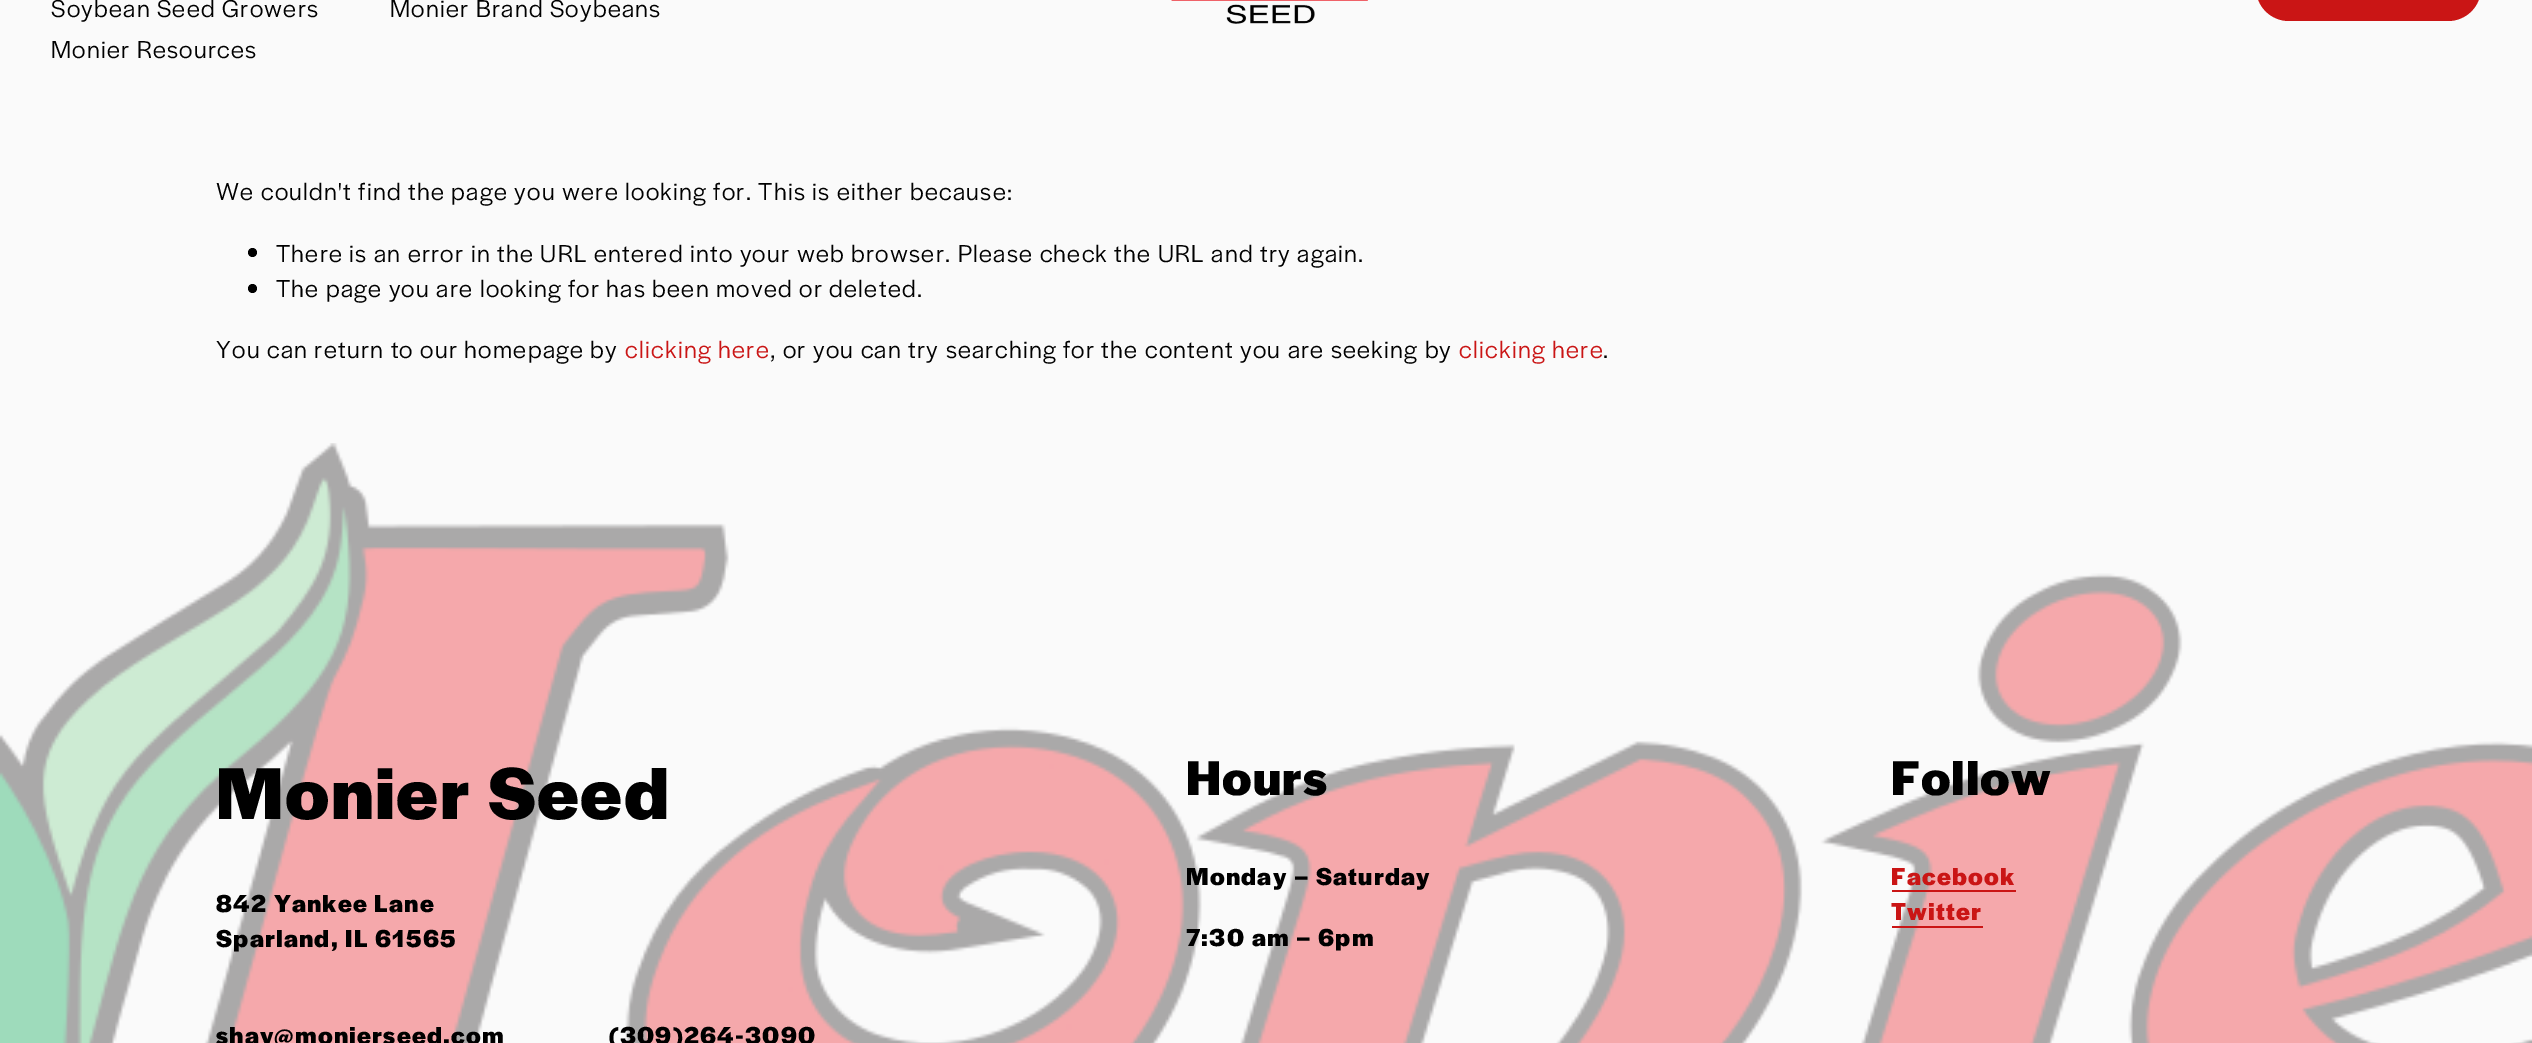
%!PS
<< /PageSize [2532 1043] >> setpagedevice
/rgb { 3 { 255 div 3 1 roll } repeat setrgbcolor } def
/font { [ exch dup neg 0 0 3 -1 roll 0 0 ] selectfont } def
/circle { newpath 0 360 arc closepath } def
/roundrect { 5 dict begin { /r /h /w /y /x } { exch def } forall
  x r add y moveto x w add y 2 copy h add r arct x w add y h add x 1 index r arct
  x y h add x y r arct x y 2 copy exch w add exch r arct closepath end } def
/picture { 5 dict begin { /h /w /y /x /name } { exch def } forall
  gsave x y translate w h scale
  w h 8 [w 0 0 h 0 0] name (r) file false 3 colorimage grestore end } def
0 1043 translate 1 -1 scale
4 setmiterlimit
250 250 250 rgb
0 0 2532 1043 rectfill
202 21 21 rgb
2256 -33 225 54 33 roundrect fill
(img/1.rgb) 1171 0 197 24 picture
0 0 0 rgb
252.5 252.5 4.5 circle fill
252.5 288.5 4.5 circle fill
(img/2.rgb) 0 443 2532 600 picture
202 21 21 rgb
1892 890 124 2 rectfill
1892 926 91 2 rectfill
/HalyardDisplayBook-Regular 25.5 font
0 0 0 rgb
51 17 moveto 1.27 0 (Soybean Seed Growers) ashow
390 17 moveto 1.27 0 (Monier Brand Soybeans) ashow
51 58 moveto 1.27 0 (Monier Resources) ashow
216 200 moveto 1.27 0 (We couldn't find the page you were looking for. This is either because:) ashow
276 262 moveto 1.27 0 (There is an error in the URL entered into your web browser. Please check the URL and try again.) ashow
276 297 moveto 1.27 0 (The page you are looking for has been moved or deleted.) ashow
216 358 moveto 1.27 0 (You can return to our homepage by) ashow
202 21 21 rgb
625 358 moveto 1.27 0 (clicking here) ashow
0 0 0 rgb
770 358 moveto 1.27 0 (, or you can try searching for the content you are seeking by) ashow
202 21 21 rgb
1459 358 moveto 1.27 0 (clicking here) ashow
0 0 0 rgb
1603 358 moveto 1.27 0 (.) ashow
/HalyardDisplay-Bold 76.5 font
216 819 moveto 1.5 0 (Monier Seed) ashow
/HalyardDisplay-Bold 25.5 font
216 912 moveto 1.27 0 (842 Yankee Lane) ashow
216 947 moveto 1.27 0 (Sparland, IL 61565) ashow
216 1044 moveto 1.27 0 (shay@monierseed.com                \(309\)264-3090) ashow
/HalyardDisplay-Bold 51 font
1186 795 moveto 1 0 (Hours) ashow
/HalyardDisplay-Bold 25.5 font
1186 885 moveto 1.27 0 (Monday – Saturday) ashow
1186 946 moveto 1.27 0 (7:30 am – 6pm) ashow
/HalyardDisplay-Bold 51 font
1891 795 moveto 1 0 (Follow) ashow
/HalyardDisplay-Bold 25.5 font
202 21 21 rgb
1891 885 moveto 1.27 0 (Facebook) ashow
1891 920 moveto 1.27 0 (Twitter) ashow
showpage
